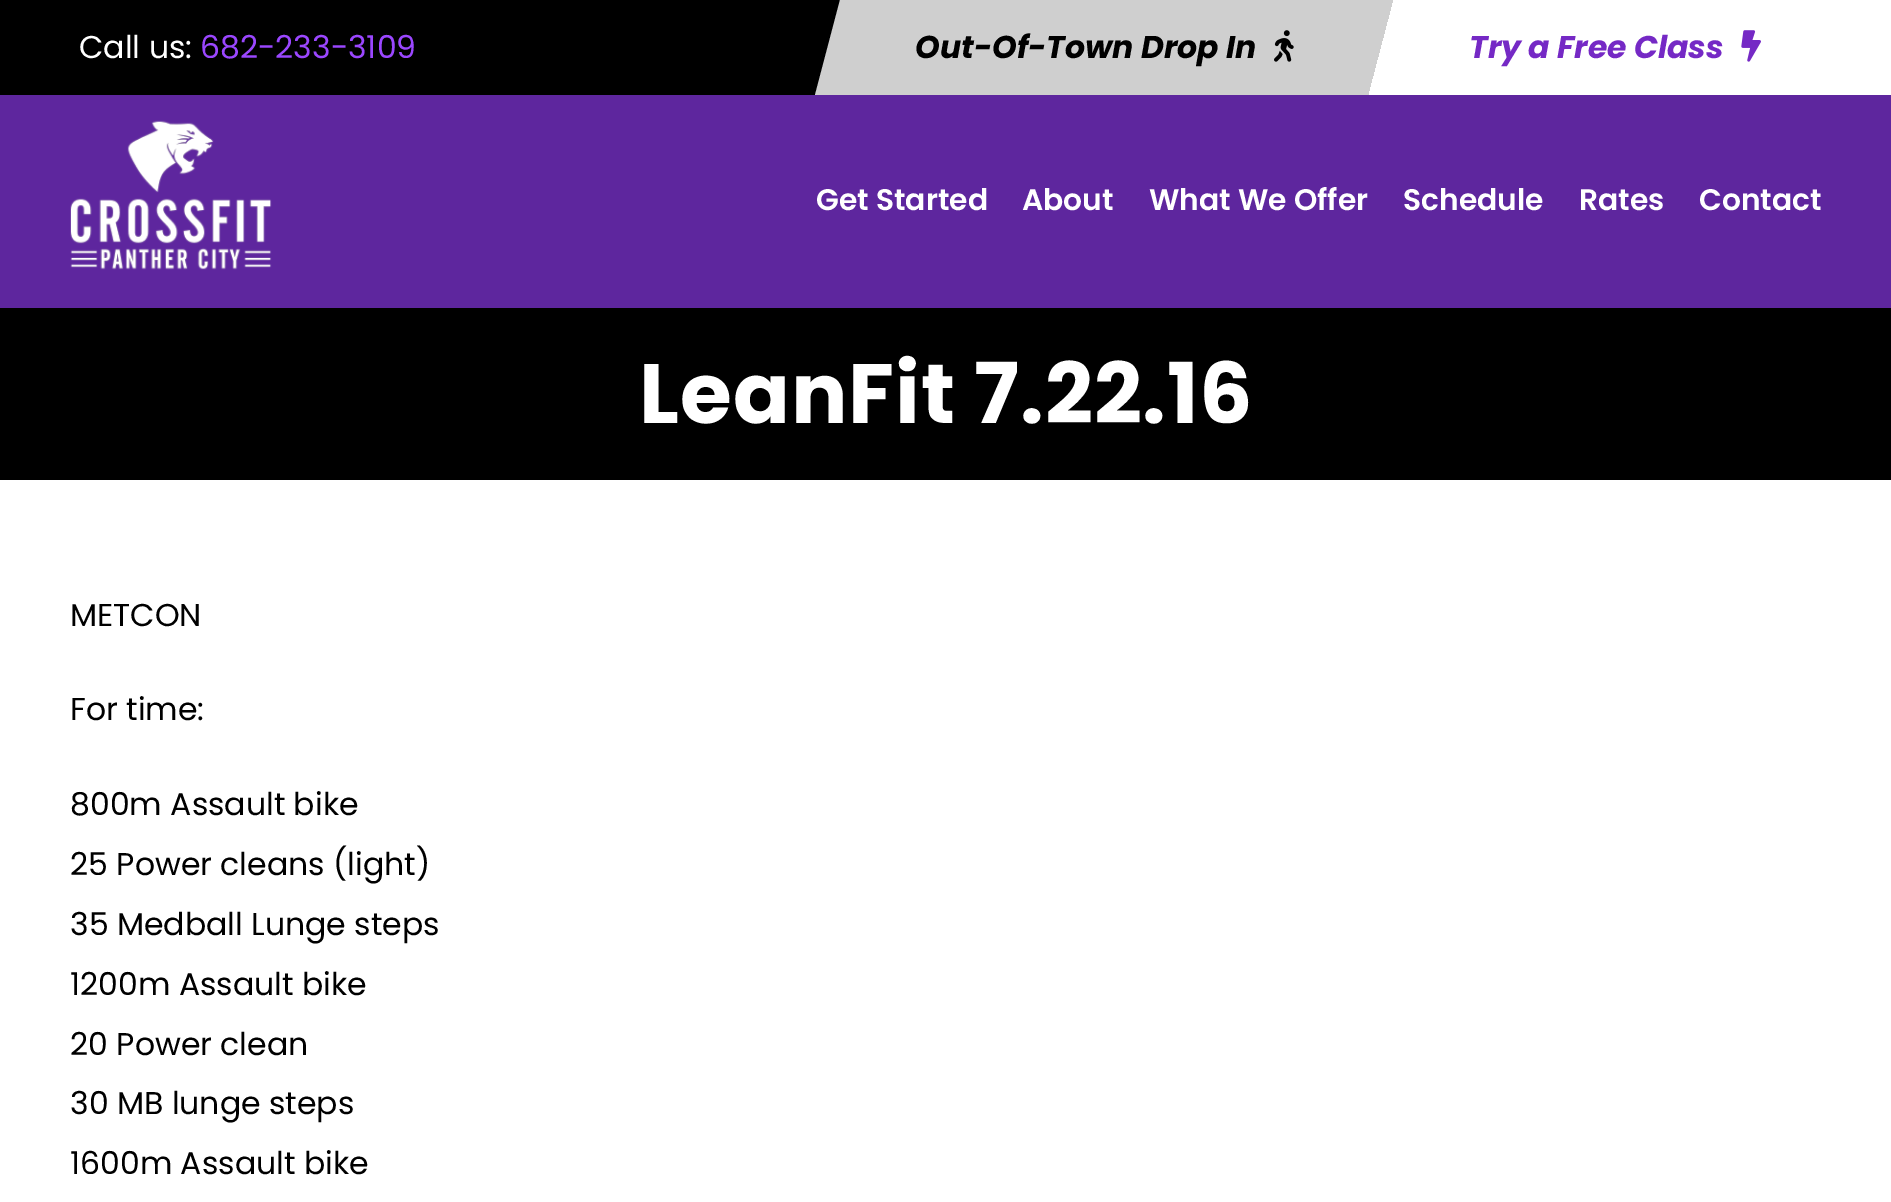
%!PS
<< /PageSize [1891 1202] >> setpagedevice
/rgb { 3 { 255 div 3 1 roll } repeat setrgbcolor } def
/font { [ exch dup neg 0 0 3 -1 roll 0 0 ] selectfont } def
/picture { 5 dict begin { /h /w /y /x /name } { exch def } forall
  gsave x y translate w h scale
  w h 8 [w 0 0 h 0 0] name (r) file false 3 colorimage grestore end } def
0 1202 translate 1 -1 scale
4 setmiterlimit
255 255 255 rgb
0 0 1891 1202 rectfill
0 0 0 rgb
0 0 840 95 rectfill
207 207 207 rgb
840 0 moveto 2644 0 lineto 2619 95 lineto 815 95 lineto closepath fill
(img/1.rgb) 1274 30 20 32 picture
gsave 1394 0 moveto 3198 0 lineto 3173 95 lineto 1369 95 lineto closepath clip newpath
<< /ShadingType 2 /ColorSpace /DeviceRGB /Coords [-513 47 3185 47] /Extend [true true] /Function << /FunctionType 3 /Domain [0 1] /Functions [<< /FunctionType 2 /Domain [0 1] /C0 [0.804 0.804 0.804] /C1 [1 1 1] /N 1 >> << /FunctionType 2 /Domain [0 1] /C0 [1 1 1] /C1 [1 1 1] /N 1 >>] /Bounds [0.5] /Encode [0 1 0 1] >> >> shfill grestore
(img/2.rgb) 1741 30 20 32 picture
94 38 158 rgb
0 95 1891 213 rectfill
(img/3.rgb) 70 120 202 150 picture
0 0 0 rgb
0 308 1891 172 rectfill
/Poppins-Regular 31.5 font
255 255 255 rgb
79 58 moveto (Call us:) show
155 71 255 rgb
200 58 moveto (682-233-3109) show
/Poppins-BoldItalic 31.5 font
0 0 0 rgb
915 58 moveto (Out-Of-Town Drop In) show
117 41 197 rgb
1469 58 moveto (Try a Free Class) show
/Poppins-SemiBold 29.75 font
255 255 255 rgb
[
  [(Get Started) 816 210]
  [(About) 1022 210]
  [(What We Offer) 1149 210]
  [(Schedule) 1403 210]
  [(Rates) 1579 210]
  [(Contact) 1699 210]
] { aload pop moveto show } forall
/Poppins-Bold 84 font
639 423 moveto 0.9 0 (LeanFit 7.22.16) ashow
/Poppins-Regular 31.5 font
0 0 0 rgb
[
  [(METCON) 70 626]
  [(For time:) 70 720]
  [(800m Assault bike) 70 815]
  [(25 Power cleans \(light\)) 70 875]
  [(35 Medball Lunge steps) 70 935]
  [(1200m Assault bike) 70 995]
  [(20 Power clean) 70 1055]
  [(30 MB lunge steps) 70 1114]
  [(1600m Assault bike) 70 1174]
] { aload pop moveto show } forall
showpage
